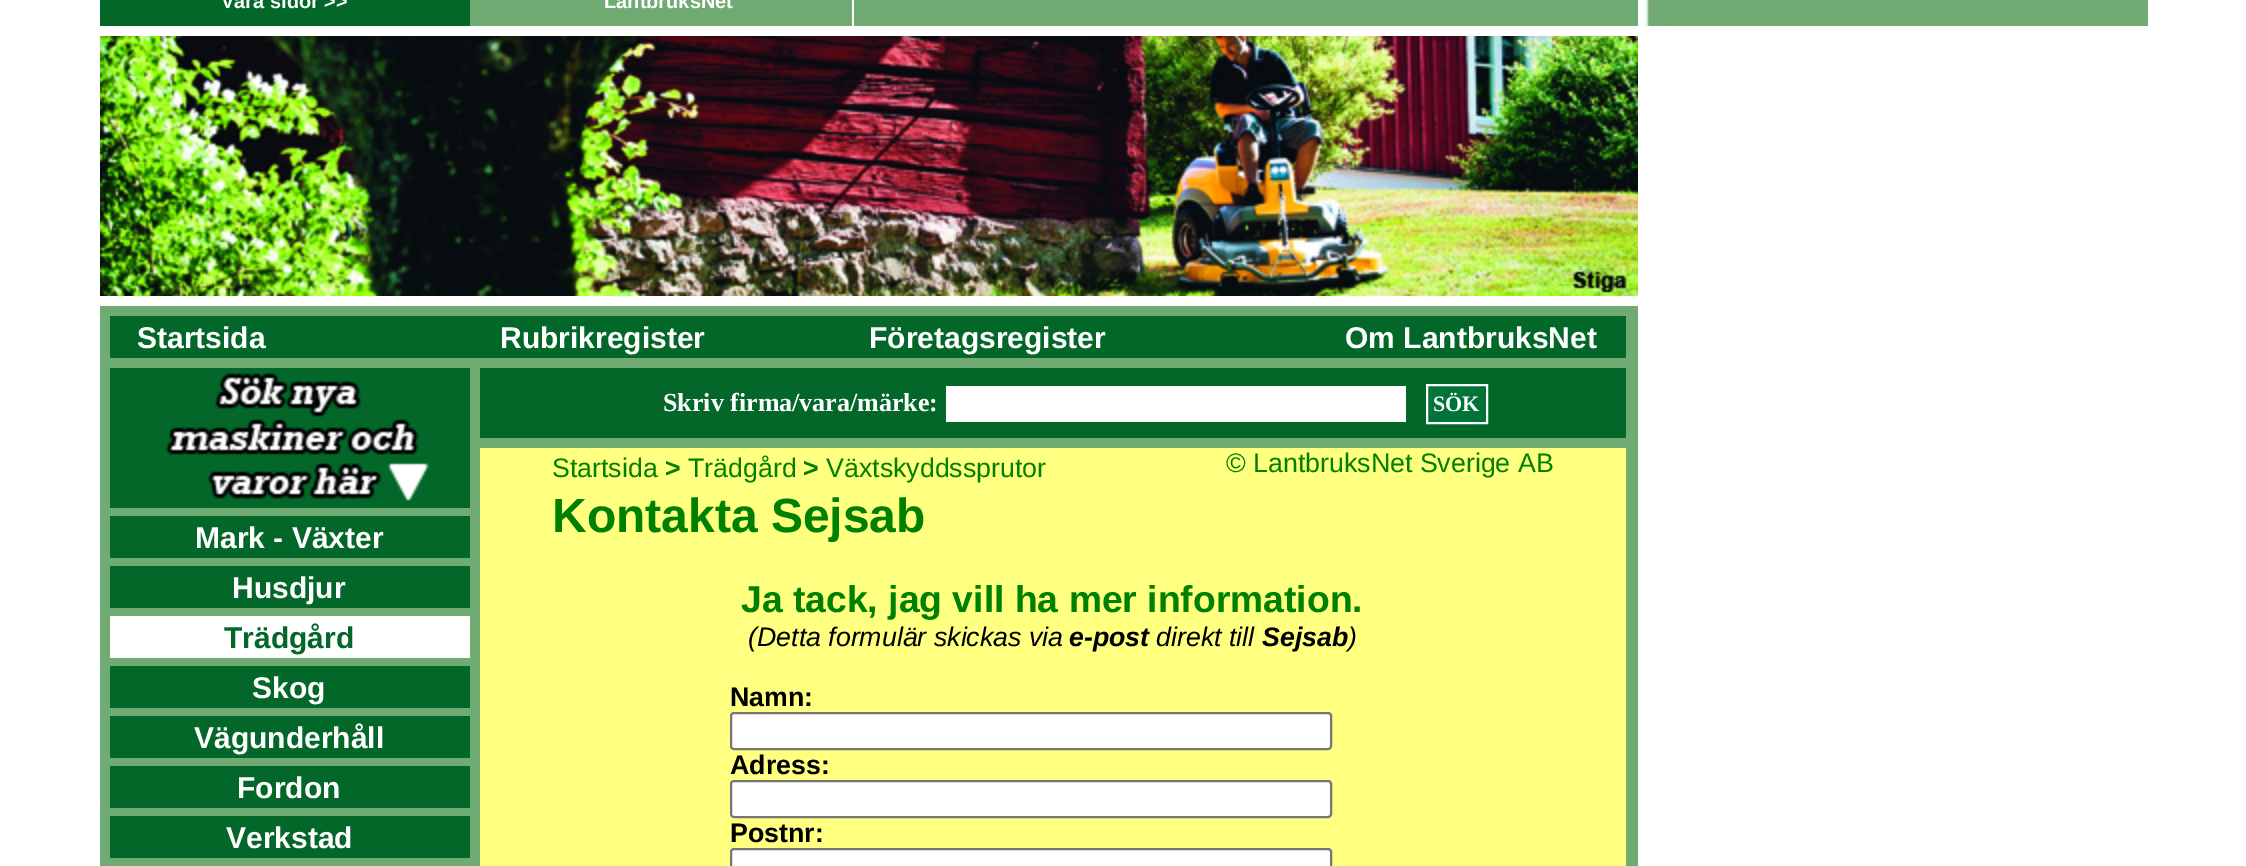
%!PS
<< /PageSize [2246 866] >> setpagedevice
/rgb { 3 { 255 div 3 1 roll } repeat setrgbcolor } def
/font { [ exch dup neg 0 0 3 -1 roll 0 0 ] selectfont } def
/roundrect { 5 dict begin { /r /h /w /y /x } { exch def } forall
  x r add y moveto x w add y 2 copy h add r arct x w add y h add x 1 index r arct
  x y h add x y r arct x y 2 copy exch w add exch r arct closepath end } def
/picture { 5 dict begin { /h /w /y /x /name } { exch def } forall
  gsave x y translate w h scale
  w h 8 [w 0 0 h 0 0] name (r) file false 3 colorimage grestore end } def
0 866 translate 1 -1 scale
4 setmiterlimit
255 255 255 rgb
0 0 2246 866 rectfill
[
  [470 0 1168 26 113 171 116]
  [100 0 370 26 3 103 41]
  [852 0 2 26 255 255 255]
] { aload pop rgb rectfill } forall
(img/1.rgb) 1644 0 504 26 picture
(img/2.rgb) 100 36 1538 260 picture
[
  [100 306 1538 560 113 171 116]
  [110 316 1516 42 3 103 41]
  [110 368 360 140 3 103 41]
] { aload pop rgb rectfill } forall
(img/3.rgb) 165 373 264 128 picture
[
  [110 516 360 42 3 103 41]
  [110 566 360 42 3 103 41]
  [110 616 360 42 255 255 255]
  [110 666 360 42 3 103 41]
  [110 716 360 42 3 103 41]
  [110 766 360 42 3 103 41]
  [110 816 360 42 3 103 41]
  [480 368 1146 70 3 103 41]
  [946 386 460 36 255 255 255]
] { aload pop rgb rectfill } forall
0 115 54 rgb
1427 385 moveto 1487 385 lineto 1487 423 lineto 1427 423 lineto closepath gsave fill grestore
255 255 255 rgb
2 setlinewidth
stroke
255 255 128 rgb
480 448 1146 418 rectfill
255 255 255 rgb
731 713 600 36 3 roundrect gsave fill grestore
118 118 118 rgb
stroke
255 255 255 rgb
731 781 600 36 3 roundrect gsave fill grestore
118 118 118 rgb
stroke
255 255 255 rgb
731 849 600 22 3 roundrect gsave fill grestore
118 118 118 rgb
stroke
/LiberationSans-Bold 20 font
255 255 255 rgb
221 8 moveto (Våra sidor >>) show
604 8 moveto (LantbruksNet) show
/LiberationSans-Bold 30 font
[
  [(Startsida) 137 348]
  [(Rubrikregister) 500 348]
  [(Företagsregister) 869 348]
  [(Om LantbruksNet) 1345 348]
  [(Mark - Växter) 195 548]
  [(Husdjur) 232 598]
] { aload pop moveto show } forall
3 103 41 rgb
224 648 moveto (Trädgård) show
255 255 255 rgb
[
  [(Skog) 252 698]
  [(Vägunderhåll) 194 748]
  [(Fordon) 237 798]
  [(Verkstad) 226 848]
] { aload pop moveto show } forall
/LiberationSerif-Bold 26 font
663 411 moveto (Skriv firma/vara/märke:) show
/LiberationSerif-Bold 22 font
1433 411 moveto (SÖK) show
/LiberationSans-Regular 26.75 font
0 128 0 rgb
552 477 moveto (Startsida) show
/LiberationSans-Bold 26.75 font
665 477 moveto (>) show
/LiberationSans-Regular 26.75 font
688 477 moveto (Trädgård) show
/LiberationSans-Bold 26.75 font
803 477 moveto (>) show
/LiberationSans-Regular 26.75 font
826 477 moveto (Växtskyddssprutor) show
1226 472 moveto (© LantbruksNet Sverige AB) show
/LiberationSans-Bold 48 font
552 532 moveto (Kontakta Sejsab) show
/LiberationSans-Bold 37.3 font
741 612 moveto (Ja tack, jag vill ha mer information.) show
/LiberationSans-Italic 26.75 font
0 0 0 rgb
748 646 moveto (\(Detta formulär skickas via) show
/LiberationSans-BoldItalic 26.75 font
1069 646 moveto (e-post) show
/LiberationSans-Italic 26.75 font
1156 646 moveto (direkt till) show
/LiberationSans-BoldItalic 26.75 font
1262 646 moveto (Sejsab) show
/LiberationSans-Italic 26.75 font
1348 646 moveto (\)) show
/LiberationSans-Bold 26.75 font
[
  [(Namn:) 730 706]
  [(Adress:) 730 774]
  [(Postnr:) 730 842]
] { aload pop moveto show } forall
showpage
